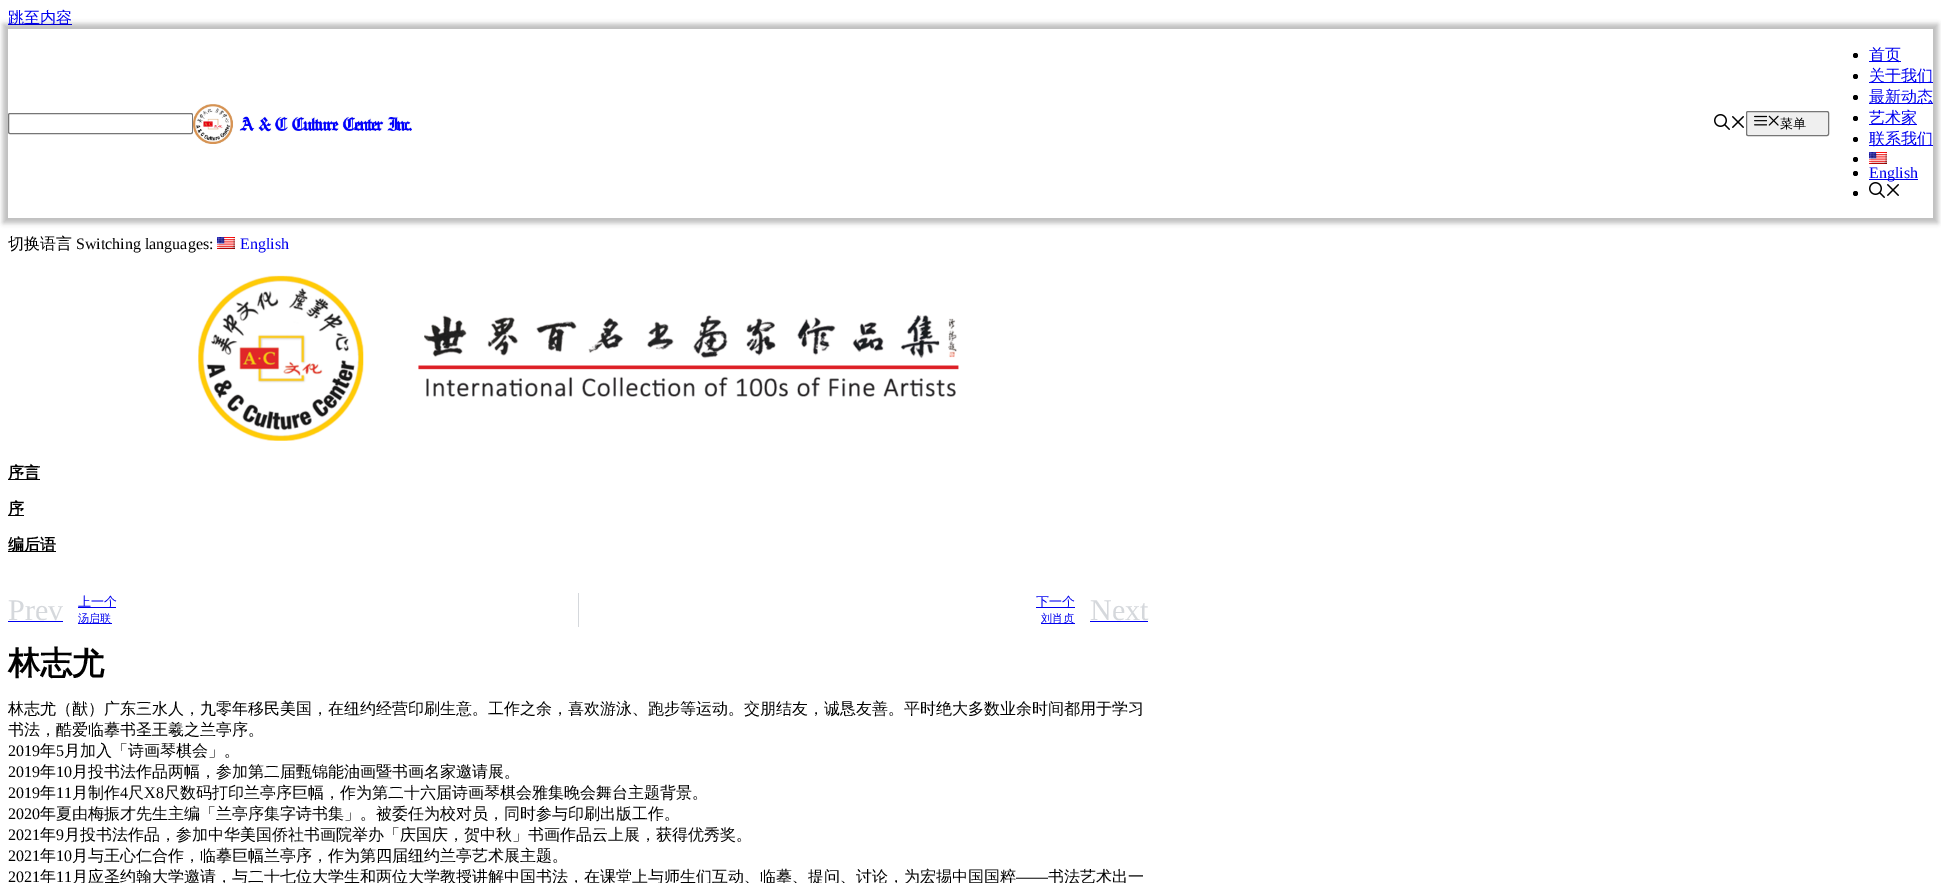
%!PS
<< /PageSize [1941 883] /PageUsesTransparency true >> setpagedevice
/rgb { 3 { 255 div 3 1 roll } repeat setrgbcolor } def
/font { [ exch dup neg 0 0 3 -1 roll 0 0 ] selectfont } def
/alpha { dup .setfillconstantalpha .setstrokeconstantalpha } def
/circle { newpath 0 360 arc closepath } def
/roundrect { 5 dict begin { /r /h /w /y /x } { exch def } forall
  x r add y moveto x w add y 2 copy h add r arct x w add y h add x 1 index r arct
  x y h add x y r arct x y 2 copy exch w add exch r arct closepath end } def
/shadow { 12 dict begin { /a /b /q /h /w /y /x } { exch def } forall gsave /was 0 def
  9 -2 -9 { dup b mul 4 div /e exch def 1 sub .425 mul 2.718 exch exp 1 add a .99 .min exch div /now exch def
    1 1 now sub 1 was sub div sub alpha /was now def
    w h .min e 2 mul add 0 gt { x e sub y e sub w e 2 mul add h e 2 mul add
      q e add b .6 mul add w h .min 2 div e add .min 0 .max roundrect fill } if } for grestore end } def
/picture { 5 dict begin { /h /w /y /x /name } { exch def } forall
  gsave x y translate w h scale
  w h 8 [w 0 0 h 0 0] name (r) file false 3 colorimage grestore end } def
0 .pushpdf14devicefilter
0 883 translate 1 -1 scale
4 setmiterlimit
255 255 255 rgb
0 0 1941 883 rectfill
0 0 238 rgb
8 24 64 1 rectfill
gsave
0 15 moveto 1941 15 lineto 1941 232 lineto 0 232 lineto closepath 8 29 moveto 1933 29 lineto 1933 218 lineto 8 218 lineto closepath eoclip newpath
0 0 0 rgb
3 24 1935 199 0 2.5 0.25 shadow
grestore
118 118 118 rgb
8.5 113.5 184 20 1.5 roundrect stroke
(img/1.rgb) 193 104 219 40 picture
(img/2.rgb) 1714 114 16 16 picture
(img/3.rgb) 1732 116 12 12 picture
239 239 239 rgb
1746.5 111.5 82 24 1.5 roundrect gsave fill grestore
118 118 118 rgb
stroke
(img/4.rgb) 1754 115 13 11 picture
(img/5.rgb) 1768 115 11 11 picture
0 0 0 rgb
1855.5 55.5 2.5 circle fill
0 0 238 rgb
1869 61 32 1 rectfill
0 0 0 rgb
1855.5 76.5 2.5 circle fill
0 0 238 rgb
1869 82 64 1 rectfill
0 0 0 rgb
1855.5 97.5 2.5 circle fill
0 0 238 rgb
1869 103 64 1 rectfill
0 0 0 rgb
1855.5 118.5 2.5 circle fill
0 0 238 rgb
1869 124 48 1 rectfill
0 0 0 rgb
1855.5 139.5 2.5 circle fill
0 0 238 rgb
1869 145 64 1 rectfill
0 0 0 rgb
1855.5 159.5 2.5 circle fill
(img/6.rgb) 1869 152 18 12 picture
1855.5 173.5 2.5 circle fill
0 0 238 rgb
1869 179 49 1 rectfill
0 0 0 rgb
1855.5 193.5 2.5 circle fill
(img/2.rgb) 1869 182 16 16 picture
(img/3.rgb) 1887 184 12 12 picture
(img/6.rgb) 217 237 18 12 picture
(img/7.rgb) 198 275 761 166 picture
[
  [8 479 32 1 0 0 0]
  [8 515 16 1 0 0 0]
  [8 551 48 1 0 0 0]
  [8 621 55 1 0 0 238]
  [78 607 38 1 0 0 238]
  [78 623 34 1 0 0 238]
  [578 593 1 34 213 216 220]
  [1036 607 39 1 0 0 238]
  [1041 623 34 1 0 0 238]
  [1090 621 58 1 0 0 238]
] { aload pop rgb rectfill } forall
/WenQuanYiZenHei-Medium 16 font
8 23 moveto (跳至内容) show
/WenQuanYiZenHei-Medium 13 font
0 0 0 rgb
1780 128 moveto (菜单) show
/WenQuanYiZenHei-Medium 16 font
0 0 238 rgb
[
  [(首页) 1869 60]
  [(关于我们) 1869 81]
  [(最新动态) 1869 102]
  [(艺术家) 1869 123]
  [(联系我们) 1869 144]
] { aload pop moveto show } forall
/LiberationSerif-Regular 16 font
1869 178 moveto (English) show
/WenQuanYiZenHei-Medium 16 font
0 0 0 rgb
8 249 moveto (切换语言) show
/LiberationSerif-Regular 16 font
76 249 moveto (Switching languages:) show
0 0 238 rgb
240 249 moveto (English) show
/WenQuanYiZenHei-Bold 16 font
0 0 0 rgb
[
  [(序言) 8 478]
  [(序) 8 514]
  [(编后语) 8 550]
] { aload pop moveto show } forall
/LiberationSerif-Regular 30 font
213 216 220 rgb
8 620 moveto (Prev) show
/WenQuanYiZenHei-Medium 13 font
0 0 238 rgb
78 606 moveto (上一个) show
/WenQuanYiZenHei-Medium 11 font
78 622 moveto (汤启联) show
/WenQuanYiZenHei-Medium 13 font
1036 606 moveto (下一个) show
/WenQuanYiZenHei-Medium 11 font
1041 622 moveto (刘肖贞) show
/LiberationSerif-Regular 30 font
213 216 220 rgb
1090 620 moveto (Next) show
/WenQuanYiZenHei-Bold 32 font
0 0 0 rgb
8 674 moveto (林志尤) show
/WenQuanYiZenHei-Medium 16 font
8 714 moveto (林志尤（猷）广东三水人，九零年移民美国，在纽约经营印刷生意。工作之余，喜欢游泳、跑步等运动。交朋结友，诚恳友善。平时绝大多数业余时间都用于学习) show
8 735 moveto (书法，酷爱临摹书圣王羲之兰亭序。) show
/LiberationSerif-Regular 16 font
8 756 moveto (2019) show
/WenQuanYiZenHei-Medium 16 font
40 756 moveto (年) show
/LiberationSerif-Regular 16 font
56 756 moveto (5) show
/WenQuanYiZenHei-Medium 16 font
64 756 moveto (月加入「诗画琴棋会」。) show
/LiberationSerif-Regular 16 font
8 777 moveto (2019) show
/WenQuanYiZenHei-Medium 16 font
40 777 moveto (年) show
/LiberationSerif-Regular 16 font
56 777 moveto (10) show
/WenQuanYiZenHei-Medium 16 font
72 777 moveto (月投书法作品两幅，参加第二届甄锦能油画暨书画名家邀请展。) show
/LiberationSerif-Regular 16 font
8 798 moveto (2019) show
/WenQuanYiZenHei-Medium 16 font
40 798 moveto (年) show
/LiberationSerif-Regular 16 font
56 798 moveto (11) show
/WenQuanYiZenHei-Medium 16 font
72 798 moveto (月制作) show
/LiberationSerif-Regular 16 font
120 798 moveto (4) show
/WenQuanYiZenHei-Medium 16 font
128 798 moveto (尺) show
/LiberationSerif-Regular 16 font
144 798 moveto (X8) show
/WenQuanYiZenHei-Medium 16 font
164 798 moveto (尺数码打印兰亭序巨幅，作为第二十六届诗画琴棋会雅集晚会舞台主题背景。) show
/LiberationSerif-Regular 16 font
8 819 moveto (2020) show
/WenQuanYiZenHei-Medium 16 font
40 819 moveto (年夏由梅振才先生主编「兰亭序集字诗书集」。被委任为校对员，同时参与印刷出版工作。) show
/LiberationSerif-Regular 16 font
8 840 moveto (2021) show
/WenQuanYiZenHei-Medium 16 font
40 840 moveto (年) show
/LiberationSerif-Regular 16 font
56 840 moveto (9) show
/WenQuanYiZenHei-Medium 16 font
64 840 moveto (月投书法作品，参加中华美国侨社书画院举办「庆国庆，贺中秋」书画作品云上展，获得优秀奖。) show
/LiberationSerif-Regular 16 font
8 861 moveto (2021) show
/WenQuanYiZenHei-Medium 16 font
40 861 moveto (年) show
/LiberationSerif-Regular 16 font
56 861 moveto (10) show
/WenQuanYiZenHei-Medium 16 font
72 861 moveto (月与王心仁合作，临摹巨幅兰亭序，作为第四届纽约兰亭艺术展主题。) show
/LiberationSerif-Regular 16 font
8 882 moveto (2021) show
/WenQuanYiZenHei-Medium 16 font
40 882 moveto (年) show
/LiberationSerif-Regular 16 font
56 882 moveto (11) show
/WenQuanYiZenHei-Medium 16 font
72 882 moveto (月应圣约翰大学邀请，与二十七位大学生和两位大学教授讲解中国书法，在课堂上与师生们互动、临摹、提问、讨论，为宏掦中国国粹) show
/LiberationSerif-Regular 16 font
1016 882 moveto (——) show
/WenQuanYiZenHei-Medium 16 font
1048 882 moveto (书法艺术出一) show
.poppdf14devicefilter showpage
